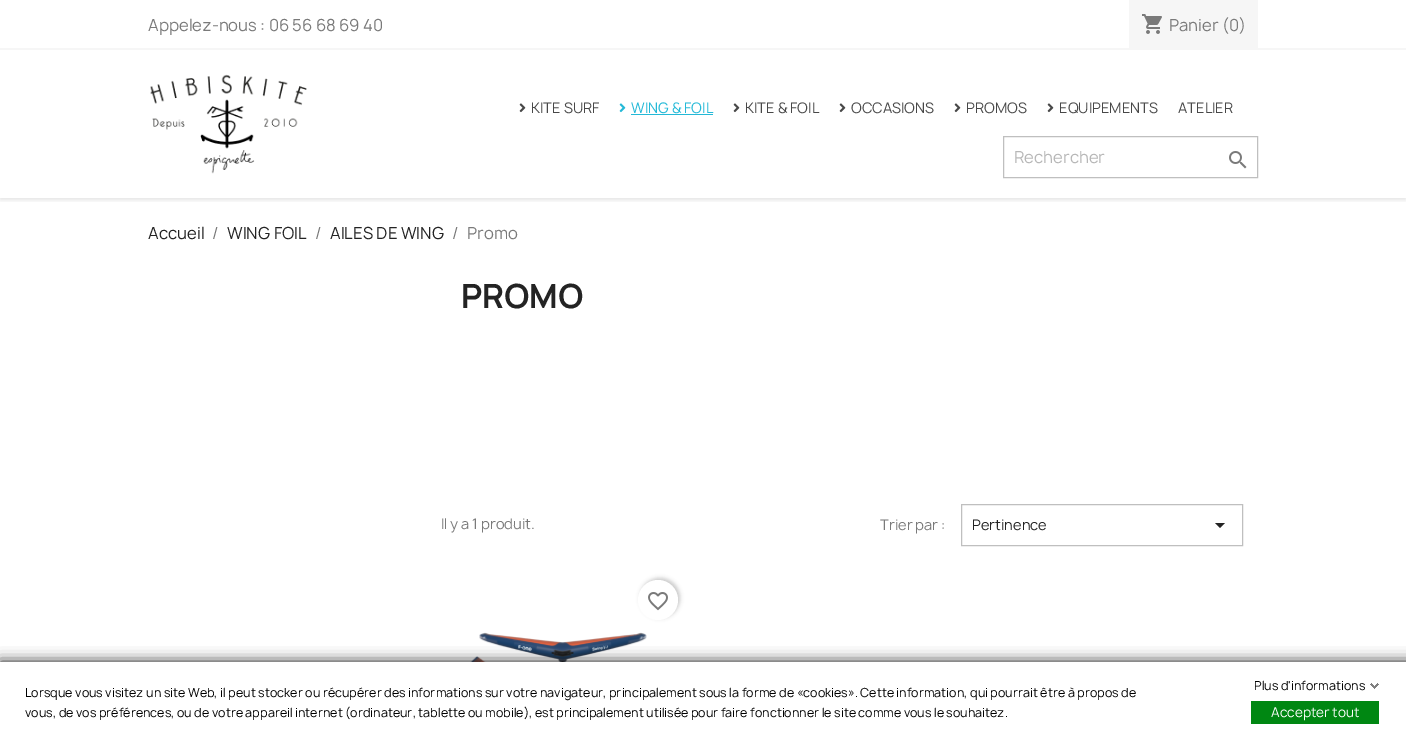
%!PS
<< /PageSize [1406 738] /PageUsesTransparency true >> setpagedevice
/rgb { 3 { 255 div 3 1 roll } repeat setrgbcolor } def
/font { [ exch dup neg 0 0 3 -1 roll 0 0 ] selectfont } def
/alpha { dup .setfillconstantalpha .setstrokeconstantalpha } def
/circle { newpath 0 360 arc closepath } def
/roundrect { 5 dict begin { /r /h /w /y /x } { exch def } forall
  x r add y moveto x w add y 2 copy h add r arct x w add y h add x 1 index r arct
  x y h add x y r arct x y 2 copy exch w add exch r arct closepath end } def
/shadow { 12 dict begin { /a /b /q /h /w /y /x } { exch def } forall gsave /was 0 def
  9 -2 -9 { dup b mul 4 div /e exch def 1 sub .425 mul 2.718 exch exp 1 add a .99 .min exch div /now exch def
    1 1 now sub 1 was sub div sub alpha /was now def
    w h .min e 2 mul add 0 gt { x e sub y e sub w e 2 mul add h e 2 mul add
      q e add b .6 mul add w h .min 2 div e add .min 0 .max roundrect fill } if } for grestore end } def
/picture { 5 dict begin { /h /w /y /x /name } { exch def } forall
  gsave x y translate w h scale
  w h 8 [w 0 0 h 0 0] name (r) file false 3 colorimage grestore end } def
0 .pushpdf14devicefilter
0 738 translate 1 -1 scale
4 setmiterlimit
255 255 255 rgb
0 0 1406 738 rectfill
gsave
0 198 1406 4 rectclip
0 0 0 rgb
0 2 1406 198 0 2.5 0.11 shadow
grestore
246 246 246 rgb
0 48 1406 2 rectfill
1129 0 129 48 rectfill
(img/1.rgb) 1142 14 20 20 picture
(img/2.rgb) 150 74 157 100 picture
(img/3.rgb) 519 103 7 10 picture
(img/4.rgb) 619 103 7 10 picture
36 185 215 rgb
631 114 82 1 rectfill
(img/3.rgb) 733 103 7 10 picture
(img/3.rgb) 839 103 7 10 picture
(img/3.rgb) 954 103 7 10 picture
(img/3.rgb) 1047 103 7 10 picture
191 191 191 rgb
1003.5 136.5 254 41 rectstroke
(img/5.rgb) 1229 151 18 18 picture
961.5 504.5 281 41 rectstroke
35 35 35 rgb
1215 523 moveto 1225 523 lineto 1220 528 lineto closepath fill
0 0 0 rgb
640 578 40 40 20 2 0.2 shadow
255 255 255 rgb
658 600 20 circle fill
(img/6.rgb) 648 592 20 19 picture
(img/7.rgb) 470 632 177 30 picture
18 18 18 rgb
0 662 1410 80 0 7 1 shadow
255 255 255 rgb
0 662 1406 76 rectfill
(img/8.rgb) 1370 683 9 6 picture
0 135 18 rgb
1251 701 128 23 rectfill
/Manrope-Regular 16 font
122 122 122 rgb
148 31 moveto (Appelez-nous : 06 56 68 69 40) show
1169 31 moveto (Panier \(0\)) show
/Manrope-Regular 14 font
72 72 72 rgb
531 113 moveto (KITE SURF) show
36 185 215 rgb
631 113 moveto (WING & FOIL) show
72 72 72 rgb
[
  [(KITE & FOIL) 745 113]
  [(OCCASIONS) 851 113]
  [(PROMOS) 966 113]
  [(EQUIPEMENTS) 1059 113]
  [(ATELIER) 1178 113]
] { aload pop moveto show } forall
/Manrope-Regular 16 font
183 183 183 rgb
1014 163 moveto (Rechercher) show
35 35 35 rgb
148 239 moveto (Accueil) show
122 122 122 rgb
212 239 moveto (/) show
35 35 35 rgb
227 239 moveto (WING FOIL) show
122 122 122 rgb
315 239 moveto (/) show
35 35 35 rgb
330 239 moveto (AILES DE WING) show
122 122 122 rgb
452 239 moveto (/) show
467 239 moveto (Promo) show
/Manrope-Bold 32 font
35 35 35 rgb
461 308 moveto (PROMO) show
/Manrope-Regular 14 font
122 122 122 rgb
441 529 moveto (Il y a 1 produit.) show
880 530 moveto (Trier par :) show
35 35 35 rgb
972 530 moveto (Pertinence) show
/Manrope-Regular 12 font
0 0 0 rgb
[
  [(Lorsque vous visitez un site Web, il peut stocker ou récupérer des informations sur votre navigateur, principalement sous la forme de «cookies». Cette information, qui pourrait être à propos de) 25 697]
  [(vous, de vos préférences, ou de votre appareil internet \(ordinateur, tablette ou mobile\), est principalement utilisée pour faire fonctionner le site comme vous le souhaitez.) 25 717]
  [(Plus d'informations) 1254 690]
] { aload pop moveto show } forall
/Manrope-Regular 13 font
255 255 255 rgb
1271 717 moveto (Accepter tout) show
.poppdf14devicefilter showpage
